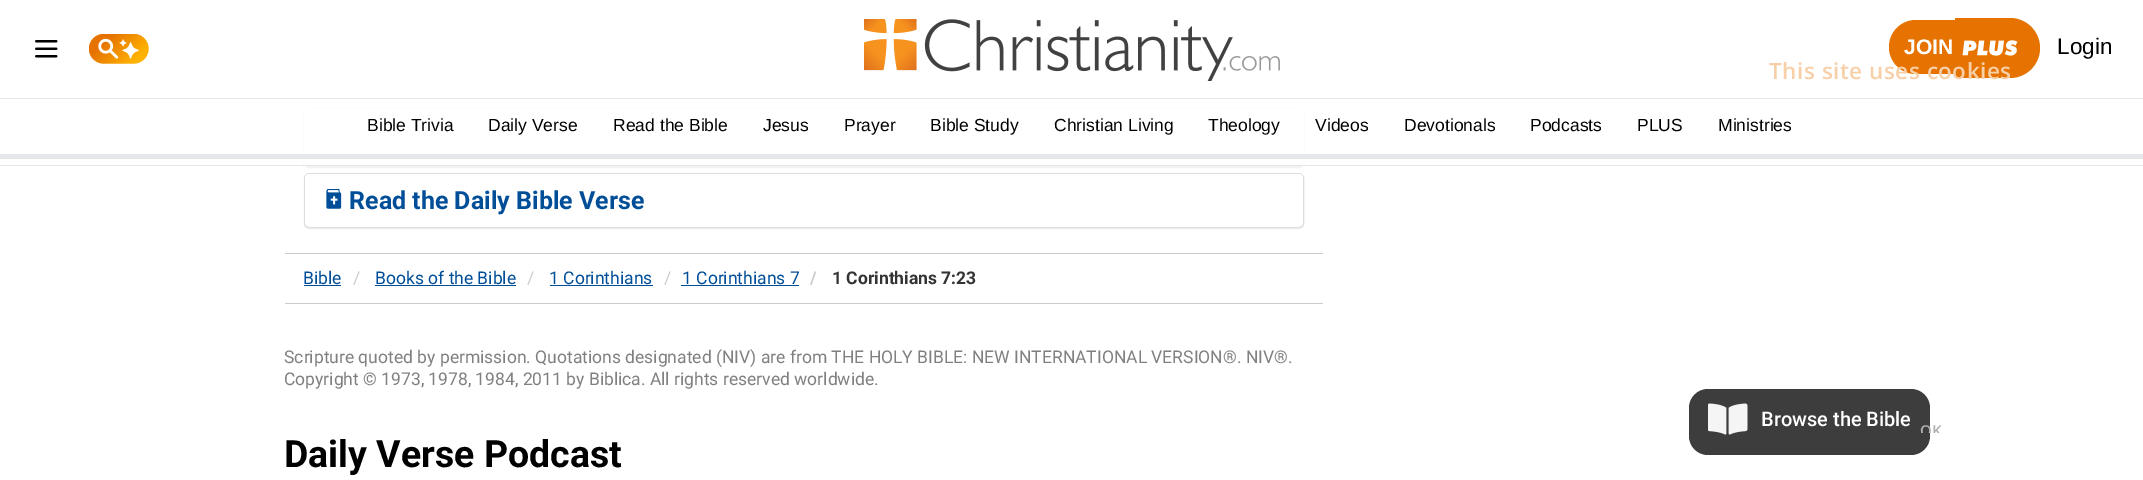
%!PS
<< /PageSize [2143 480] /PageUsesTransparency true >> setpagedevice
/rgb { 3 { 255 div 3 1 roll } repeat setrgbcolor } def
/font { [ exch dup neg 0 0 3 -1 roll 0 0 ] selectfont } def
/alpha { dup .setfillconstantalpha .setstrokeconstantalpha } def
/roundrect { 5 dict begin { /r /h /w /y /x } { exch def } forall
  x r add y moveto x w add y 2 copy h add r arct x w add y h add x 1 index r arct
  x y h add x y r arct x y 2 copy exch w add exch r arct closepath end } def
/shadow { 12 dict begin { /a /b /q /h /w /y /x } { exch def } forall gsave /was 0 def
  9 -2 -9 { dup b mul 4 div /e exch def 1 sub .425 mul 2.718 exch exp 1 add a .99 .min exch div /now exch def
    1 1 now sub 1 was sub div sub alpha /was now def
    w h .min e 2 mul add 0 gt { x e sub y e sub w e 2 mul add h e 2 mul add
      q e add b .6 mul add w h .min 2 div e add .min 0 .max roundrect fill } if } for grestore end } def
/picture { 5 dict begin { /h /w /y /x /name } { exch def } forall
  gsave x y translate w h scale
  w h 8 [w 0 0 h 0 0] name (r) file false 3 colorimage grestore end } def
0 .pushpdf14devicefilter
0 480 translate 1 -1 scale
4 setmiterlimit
255 255 255 rgb
0 0 2143 480 rectfill
0 0 0 rgb
304 108 1000 60 5 0.5 0.05 shadow
[
  [304 108 1000 57 255 255 255]
  [0 165 2143 1 230 230 230]
  [0 98 2143 1 230 230 230]
] { aload pop rgb rectfill } forall
(img/1.rgb) 35 40 23 18 picture
(img/2.rgb) 89 34 60 30 picture
(img/3.rgb) 864 19 416 62 picture
230 115 0 rgb
1916 20 moveto 1960 20 lineto 1960 74 lineto 1916 74 lineto 1901 74 1889 62 1889 47 curveto 1889 32 1901 20 1916 20 curveto closepath fill
1955 18 moveto 2010 18 lineto 2026.5 18 2040 31.5 2040 48 curveto 2040 64.5 2026.5 78 2010 78 curveto 1955 78 lineto closepath fill
(img/4.rgb) 1962 40 56 16 picture
229 231 235 rgb
0 154 2143 5 rectfill
0 0 0 rgb
304 174 1000 55 5 0.5 0.05 shadow
255 255 255 rgb
304.5 173.5 999 54 4.5 roundrect gsave fill grestore
221 221 221 rgb
stroke
255 255 255 rgb
305 174 998 52 4 roundrect fill
(img/5.rgb) 326 189 16 20 picture
[
  [285 253 1038 1 204 204 204]
  [285 303 1038 1 204 204 204]
  [304 285 37 1 0 78 152]
  [375 285 141 1 0 78 152]
  [550 285 103 1 0 78 152]
  [681 285 118 1 0 78 152]
] { aload pop rgb rectfill } forall
61 61 61 rgb
1689 389 241 66 19 roundrect fill
(img/6.rgb) 1708 403 40 32 picture
/LiberationSans-Bold 21 font
255 255 255 rgb
1904 54 moveto (JOIN) show
/LiberationSans-Regular 22.5 font
0 0 0 rgb
2057 54 moveto (Login) show
/LiberationSans-Regular 17.5 font
[
  [(Bible Trivia) 367 131]
  [(Daily Verse) 488 131]
  [(Read the Bible) 613 131]
  [(Jesus) 763 131]
  [(Prayer) 844 131]
  [(Bible Study) 930 131]
  [(Christian Living) 1054 131]
  [(Theology) 1208 131]
  [(Videos) 1315 131]
  [(Devotionals) 1404 131]
  [(Podcasts) 1530 131]
  [(PLUS) 1637 131]
  [(Ministries) 1718 131]
] { aload pop moveto show } forall
/OpenSans-SemiBold 22.5 font
247 208 169 rgb
1769 79 moveto 0.5 0 (This site uses cookies) ashow
gsave
1744 25 375 408 25 roundrect clip newpath
/OpenSans-SemiBold 15 font
175 175 175 rgb
1920 436 moveto 0.5 0 (OK) ashow
grestore
/Roboto-Bold 25 font
0 78 152 rgb
349 209 moveto (Read the Daily Bible Verse) show
/Roboto-Regular 17.5 font
303 284 moveto (Bible) show
204 204 204 rgb
353 284 moveto (/) show
0 78 152 rgb
375 284 moveto (Books of the Bible) show
204 204 204 rgb
527 284 moveto (/) show
0 78 152 rgb
549 284 moveto (1 Corinthians) show
204 204 204 rgb
664 284 moveto (/) show
0 78 152 rgb
682 284 moveto (1 Corinthians 7) show
/Roboto-Bold 17.5 font
204 204 204 rgb
810 284 moveto (/) show
51 51 51 rgb
832 284 moveto (1 Corinthians 7:23) show
/Roboto-Regular 17.5 font
128 128 128 rgb
284 363 moveto (Scripture quoted by permission. Quotations designated \(NIV\) are from THE HOLY BIBLE: NEW INTERNATIONAL VERSION®. NIV®.) show
284 385 moveto (Copyright © 1973, 1978, 1984, 2011 by Biblica. All rights reserved worldwide.) show
/Roboto-Bold 37.5 font
0 0 0 rgb
284 467 moveto (Daily Verse Podcast) show
/Roboto-Medium 20 font
255 255 255 rgb
1761 426 moveto (Browse the Bible) show
.poppdf14devicefilter showpage
